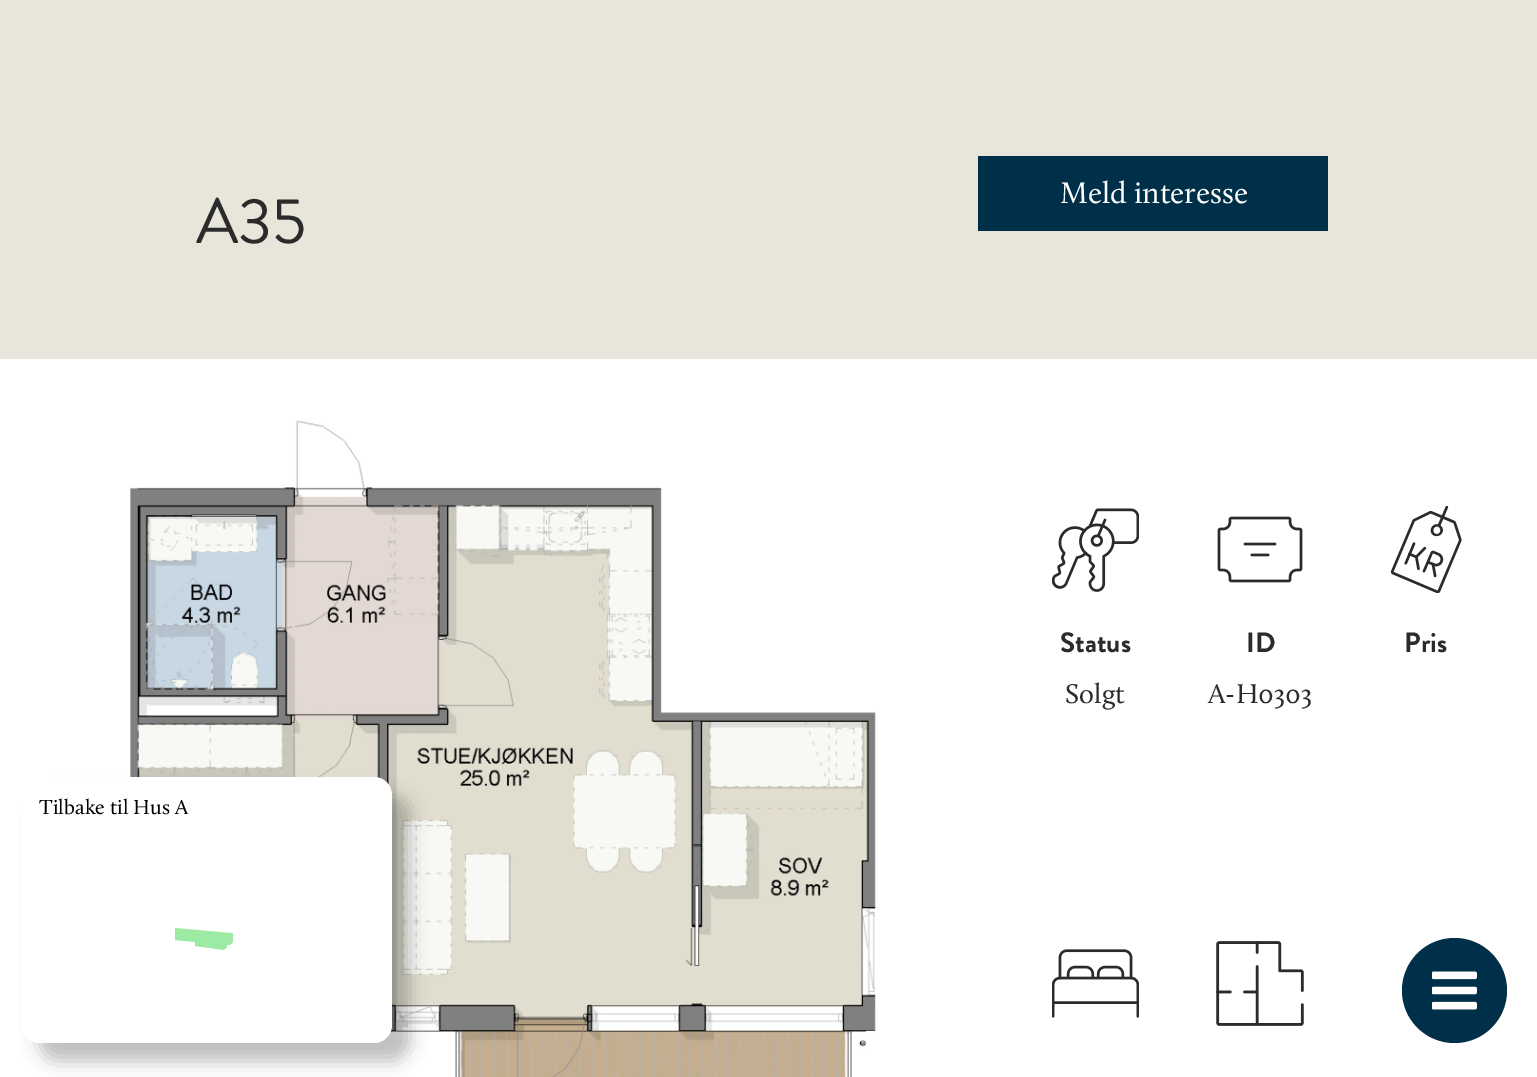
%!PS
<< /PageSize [1537 1077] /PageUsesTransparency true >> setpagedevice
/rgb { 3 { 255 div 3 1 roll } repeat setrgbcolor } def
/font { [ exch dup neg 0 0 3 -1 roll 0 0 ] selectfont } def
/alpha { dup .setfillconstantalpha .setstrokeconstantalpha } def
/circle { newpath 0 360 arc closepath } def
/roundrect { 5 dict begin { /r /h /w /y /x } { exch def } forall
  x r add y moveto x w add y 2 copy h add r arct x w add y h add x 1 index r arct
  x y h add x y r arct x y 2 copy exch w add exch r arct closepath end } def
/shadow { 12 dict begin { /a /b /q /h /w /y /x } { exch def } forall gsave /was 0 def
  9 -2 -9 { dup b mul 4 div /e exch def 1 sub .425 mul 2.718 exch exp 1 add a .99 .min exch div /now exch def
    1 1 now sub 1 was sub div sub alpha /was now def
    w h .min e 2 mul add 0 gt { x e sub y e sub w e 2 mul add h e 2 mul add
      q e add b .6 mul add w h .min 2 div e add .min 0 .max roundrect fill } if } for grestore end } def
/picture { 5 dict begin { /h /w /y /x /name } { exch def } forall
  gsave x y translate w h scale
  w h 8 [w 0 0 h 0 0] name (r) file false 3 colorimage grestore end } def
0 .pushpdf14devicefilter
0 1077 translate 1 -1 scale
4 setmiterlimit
232 229 218 rgb
0 0 1537 1077 rectfill
0 48 73 rgb
978 156 350 75 rectfill
255 255 255 rgb
0 359 1537 718 rectfill
(img/1.rgb) 130 420 746 657 picture
(img/2.rgb) 1052 508 87 84 picture
(img/3.rgb) 1217 516 86 67 picture
(img/4.rgb) 1390 506 72 87 picture
(img/5.rgb) 1052 949 87 69 picture
(img/6.rgb) 1216 941 88 85 picture
0 0 0 rgb
39 795 371 266 18 9 0.25 shadow
255 255 255 rgb
21 777 371 266 18 roundrect fill
157 234 165 rgb
233 933 moveto 230 933 lineto 175 928 lineto 175 940 lineto 195 942 lineto 195 946 lineto 224 950 lineto 227 947 lineto 227 945 lineto 230 945 lineto 233 942 lineto closepath fill
0 48 73 rgb
1454.5 990.5 52.5 circle fill
(img/7.rgb) 1432 971 45 39 picture
/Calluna-Regular 30.75 font
255 255 255 rgb
1060 203 moveto (Meld interesse) show
/BrandonGrotesque-Regular 64 font
43 43 43 rgb
196 243 moveto (A35) show
/BrandonGrotesque-Bold 28 font
1060 652 moveto (Status) show
/Calluna-Regular 28 font
1065 703 moveto (Solgt) show
/BrandonGrotesque-Bold 28 font
1246 652 moveto (ID) show
/Calluna-Regular 28 font
1208 703 moveto (A-H0303) show
/BrandonGrotesque-Bold 28 font
1404 652 moveto (Pris) show
/Calluna-Regular 21 font
0 0 0 rgb
39 814 moveto (Tilbake til Hus A) show
.poppdf14devicefilter showpage
